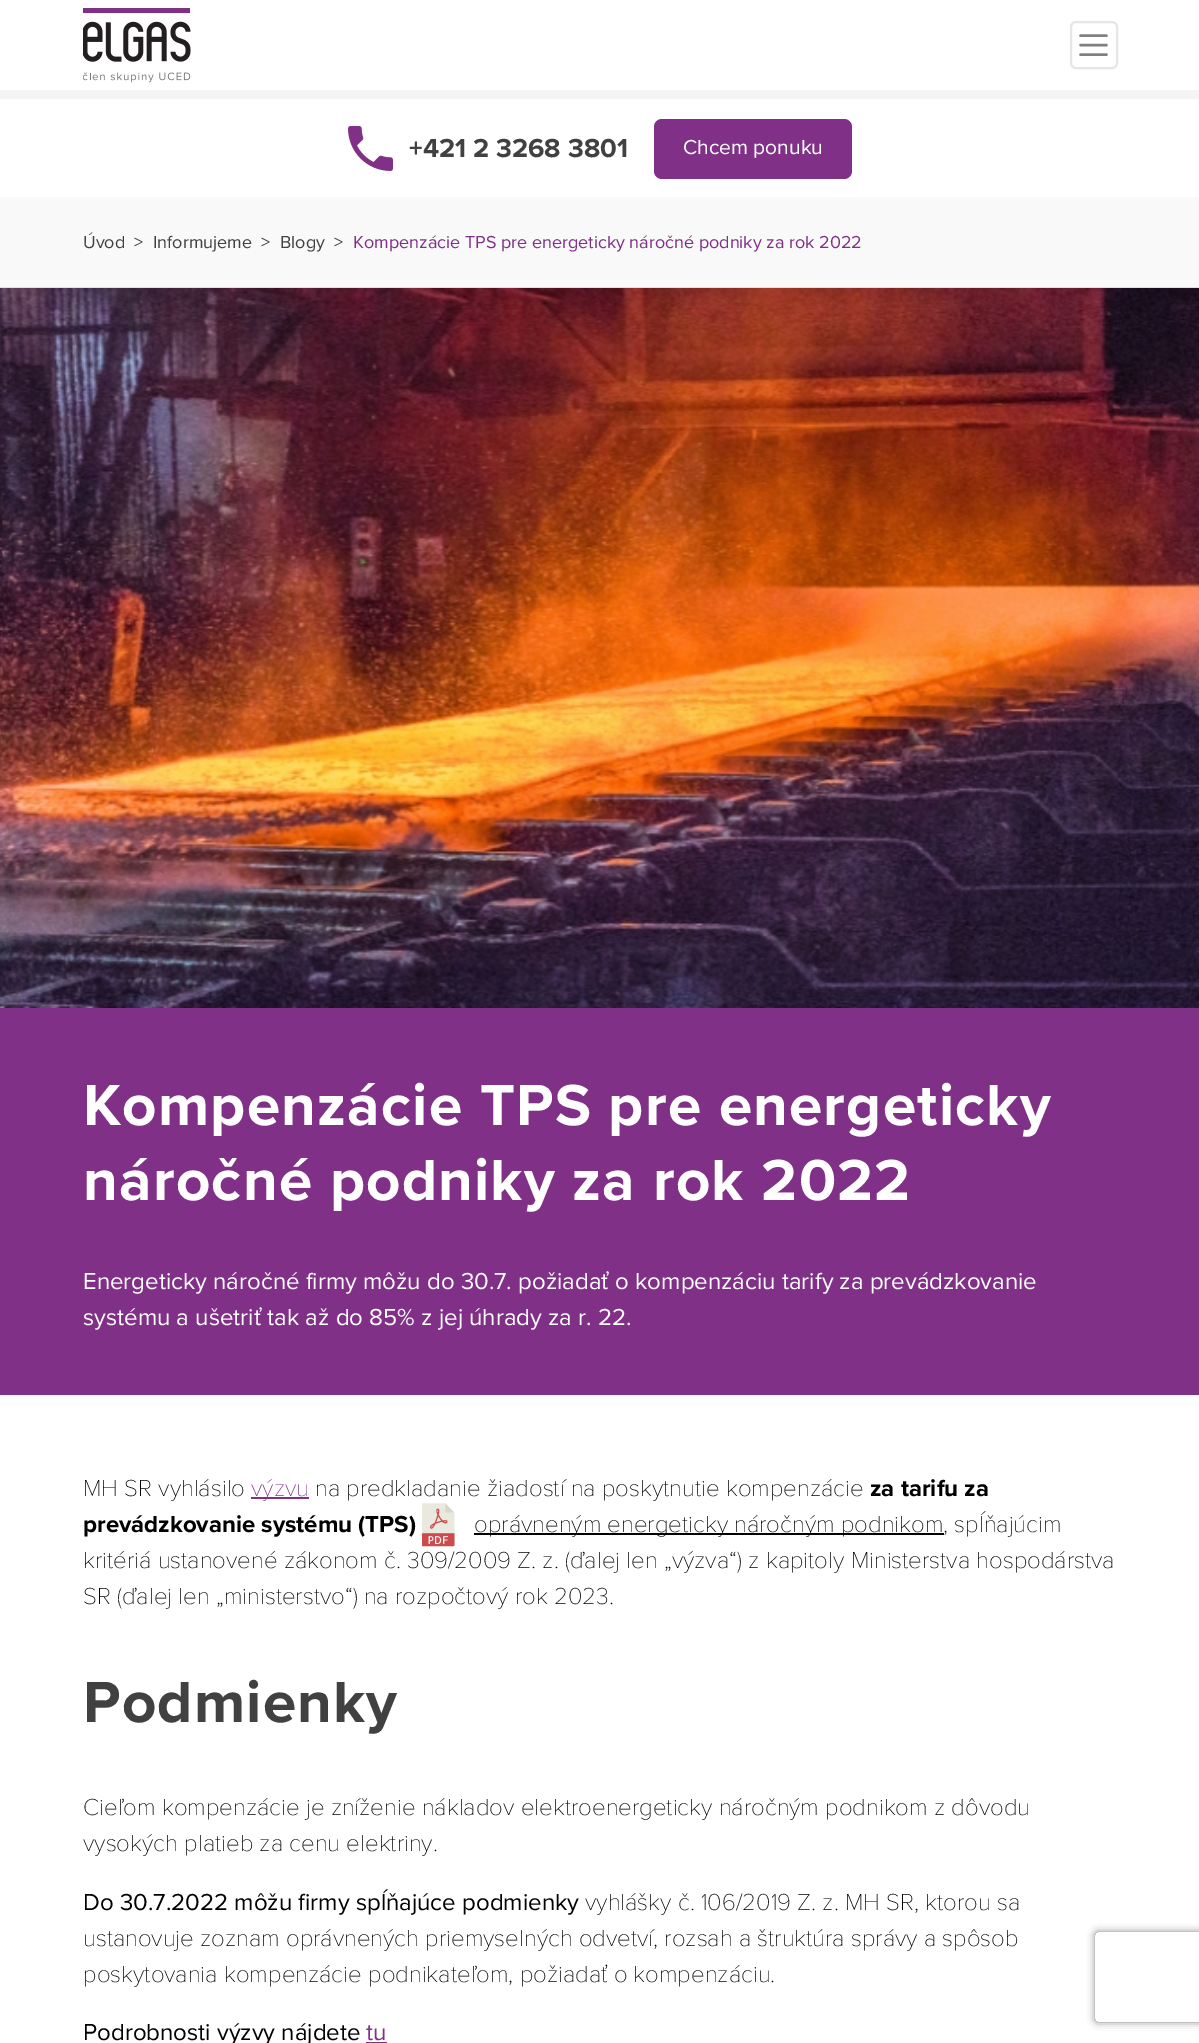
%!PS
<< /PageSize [1199 2043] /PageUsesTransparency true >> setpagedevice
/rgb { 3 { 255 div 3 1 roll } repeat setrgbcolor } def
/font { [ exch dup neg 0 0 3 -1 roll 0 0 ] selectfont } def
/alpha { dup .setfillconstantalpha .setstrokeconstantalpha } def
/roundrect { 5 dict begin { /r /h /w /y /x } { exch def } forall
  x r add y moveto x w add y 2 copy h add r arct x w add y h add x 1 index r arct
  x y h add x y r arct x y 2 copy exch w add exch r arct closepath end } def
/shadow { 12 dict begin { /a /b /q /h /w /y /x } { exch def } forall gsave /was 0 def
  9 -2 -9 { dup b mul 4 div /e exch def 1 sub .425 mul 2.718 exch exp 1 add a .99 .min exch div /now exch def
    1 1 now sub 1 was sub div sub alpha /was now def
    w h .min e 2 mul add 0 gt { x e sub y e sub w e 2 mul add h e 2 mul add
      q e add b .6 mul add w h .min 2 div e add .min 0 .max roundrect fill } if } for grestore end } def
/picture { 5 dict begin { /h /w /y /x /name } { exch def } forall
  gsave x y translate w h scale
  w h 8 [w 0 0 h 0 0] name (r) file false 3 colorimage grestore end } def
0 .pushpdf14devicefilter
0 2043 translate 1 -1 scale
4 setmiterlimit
255 255 255 rgb
0 0 1199 2043 rectfill
244 244 244 rgb
0 90 1199 9 rectfill
(img/1.rgb) 83 8 108 75 picture
230 230 230 rgb
2 setlinewidth
1071 22 46 46 5 roundrect stroke
128 128 128 rgb
2.4 setlinewidth
1 setlinecap
1080.5 35.5 moveto 1106.5 35.5 lineto 1080.5 45 moveto 1106.5 45 lineto 1080.5 54.5 moveto 1106.5 54.5 lineto stroke
(img/2.rgb) 348 126 45 45 picture
129 48 135 rgb
654 119 198 60 8 roundrect fill
[
  [0 197 1199 90 249 249 249]
  [0 287 1199 1 224 224 224]
  [0 1008 1199 387 129 48 135]
] { aload pop rgb rectfill } forall
(img/3.rgb) 0 288 1199 720 picture
251 1497 58 2 rectfill
(img/4.rgb) 422 1503 33 44 picture
0 0 0 rgb
474 1533 470 2 rectfill
129 48 135 rgb
366 2042 21 1 rectfill
gsave
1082 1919 moveto 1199 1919 lineto 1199 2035 lineto 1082 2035 lineto closepath 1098 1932 moveto 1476 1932 lineto 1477.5 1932 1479 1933.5 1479 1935 curveto 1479 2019 lineto 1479 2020.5 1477.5 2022 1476 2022 curveto 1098 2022 lineto 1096.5 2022 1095 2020.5 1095 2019 curveto 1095 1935 lineto 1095 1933.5 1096.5 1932 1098 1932 curveto closepath eoclip newpath
128 128 128 rgb
1095 1932 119 90 3 4 1 shadow
grestore
/ProximaNova-Bold 27 font
65 65 65 rgb
409 157 moveto (+421 2 3268 3801) show
/ProximaNova-Regular 21 font
255 255 255 rgb
683 154 moveto (Chcem ponuku) show
/ProximaNova-Regular 18 font
65 65 65 rgb
[
  [(Úvod) 83 248]
  [(>) 134 248]
  [(Informujeme) 153 248]
  [(>) 261 248]
  [(Blogy) 280 248]
  [(>) 334 248]
] { aload pop moveto show } forall
129 48 135 rgb
353 248 moveto (Kompenzácie TPS pre energeticky náročné podniky za rok 2022) show
/ProximaNova-Bold 60 font
255 255 255 rgb
83 1125 moveto 1.25 0 (Kompenzácie TPS pre energeticky) ashow
83 1200 moveto 1.25 0 (náročné podniky za rok 2022) ashow
/ProximaNova-Regular 24 font
83 1289 moveto (Energeticky náročné firmy môžu do 30.7. požiadať o kompenzáciu tarify za prevádzkovanie) show
83 1325 moveto (systému a ušetriť tak až do 85% z jej úhrady za r. 22.) show
/ProximaNova-Thin 24 font
0 0 0 rgb
83 1496 moveto (MH SR vyhlásilo) show
129 48 135 rgb
251 1496 moveto (výzvu) show
0 0 0 rgb
315 1496 moveto (na predkladanie žiadostí na poskytnutie kompenzácie) show
/ProximaNova-Bold 24 font
870 1496 moveto (za tarifu za) show
83 1532 moveto (prevádzkovanie systému \(TPS\)) show
/ProximaNova-Thin 24 font
[
  [(oprávneným energeticky náročným podnikom) 474 1532]
  [(, spĺňajúcim) 943 1532]
  [(kritériá ustanovené zákonom č. 309/2009 Z. z. \(ďalej len „výzva“\) z kapitoly Ministerstva hospodárstva) 83 1568]
  [(SR \(ďalej len „ministerstvo“\) na rozpočtový rok 2023.) 83 1604]
] { aload pop moveto show } forall
/ProximaNova-Bold 60 font
65 65 65 rgb
83 1722 moveto 1.25 0 (Podmienky) ashow
/ProximaNova-Thin 24 font
0 0 0 rgb
83 1815 moveto (Cieľom kompenzácie je zníženie nákladov elektroenergeticky náročným podnikom z dôvodu) show
83 1851 moveto (vysokých platieb za cenu elektriny.) show
/ProximaNova-Regular 24 font
83 1910 moveto (Do 30.7.2022 môžu firmy spĺňajúce podmienky) show
/ProximaNova-Thin 24 font
[
  [(vyhlášky č. 106/2019 Z. z. MH SR, ktorou sa) 585 1910]
  [(ustanovuje zoznam oprávnených priemyselných odvetví, rozsah a štruktúra správy a spôsob) 83 1946]
  [(poskytovania kompenzácie podnikateľom, požiadať o kompenzáciu.) 83 1982]
] { aload pop moveto show } forall
/ProximaNova-Regular 24 font
83 2040 moveto (Podrobnosti výzvy nájdete) show
129 48 135 rgb
366 2040 moveto (tu) show
.poppdf14devicefilter showpage
